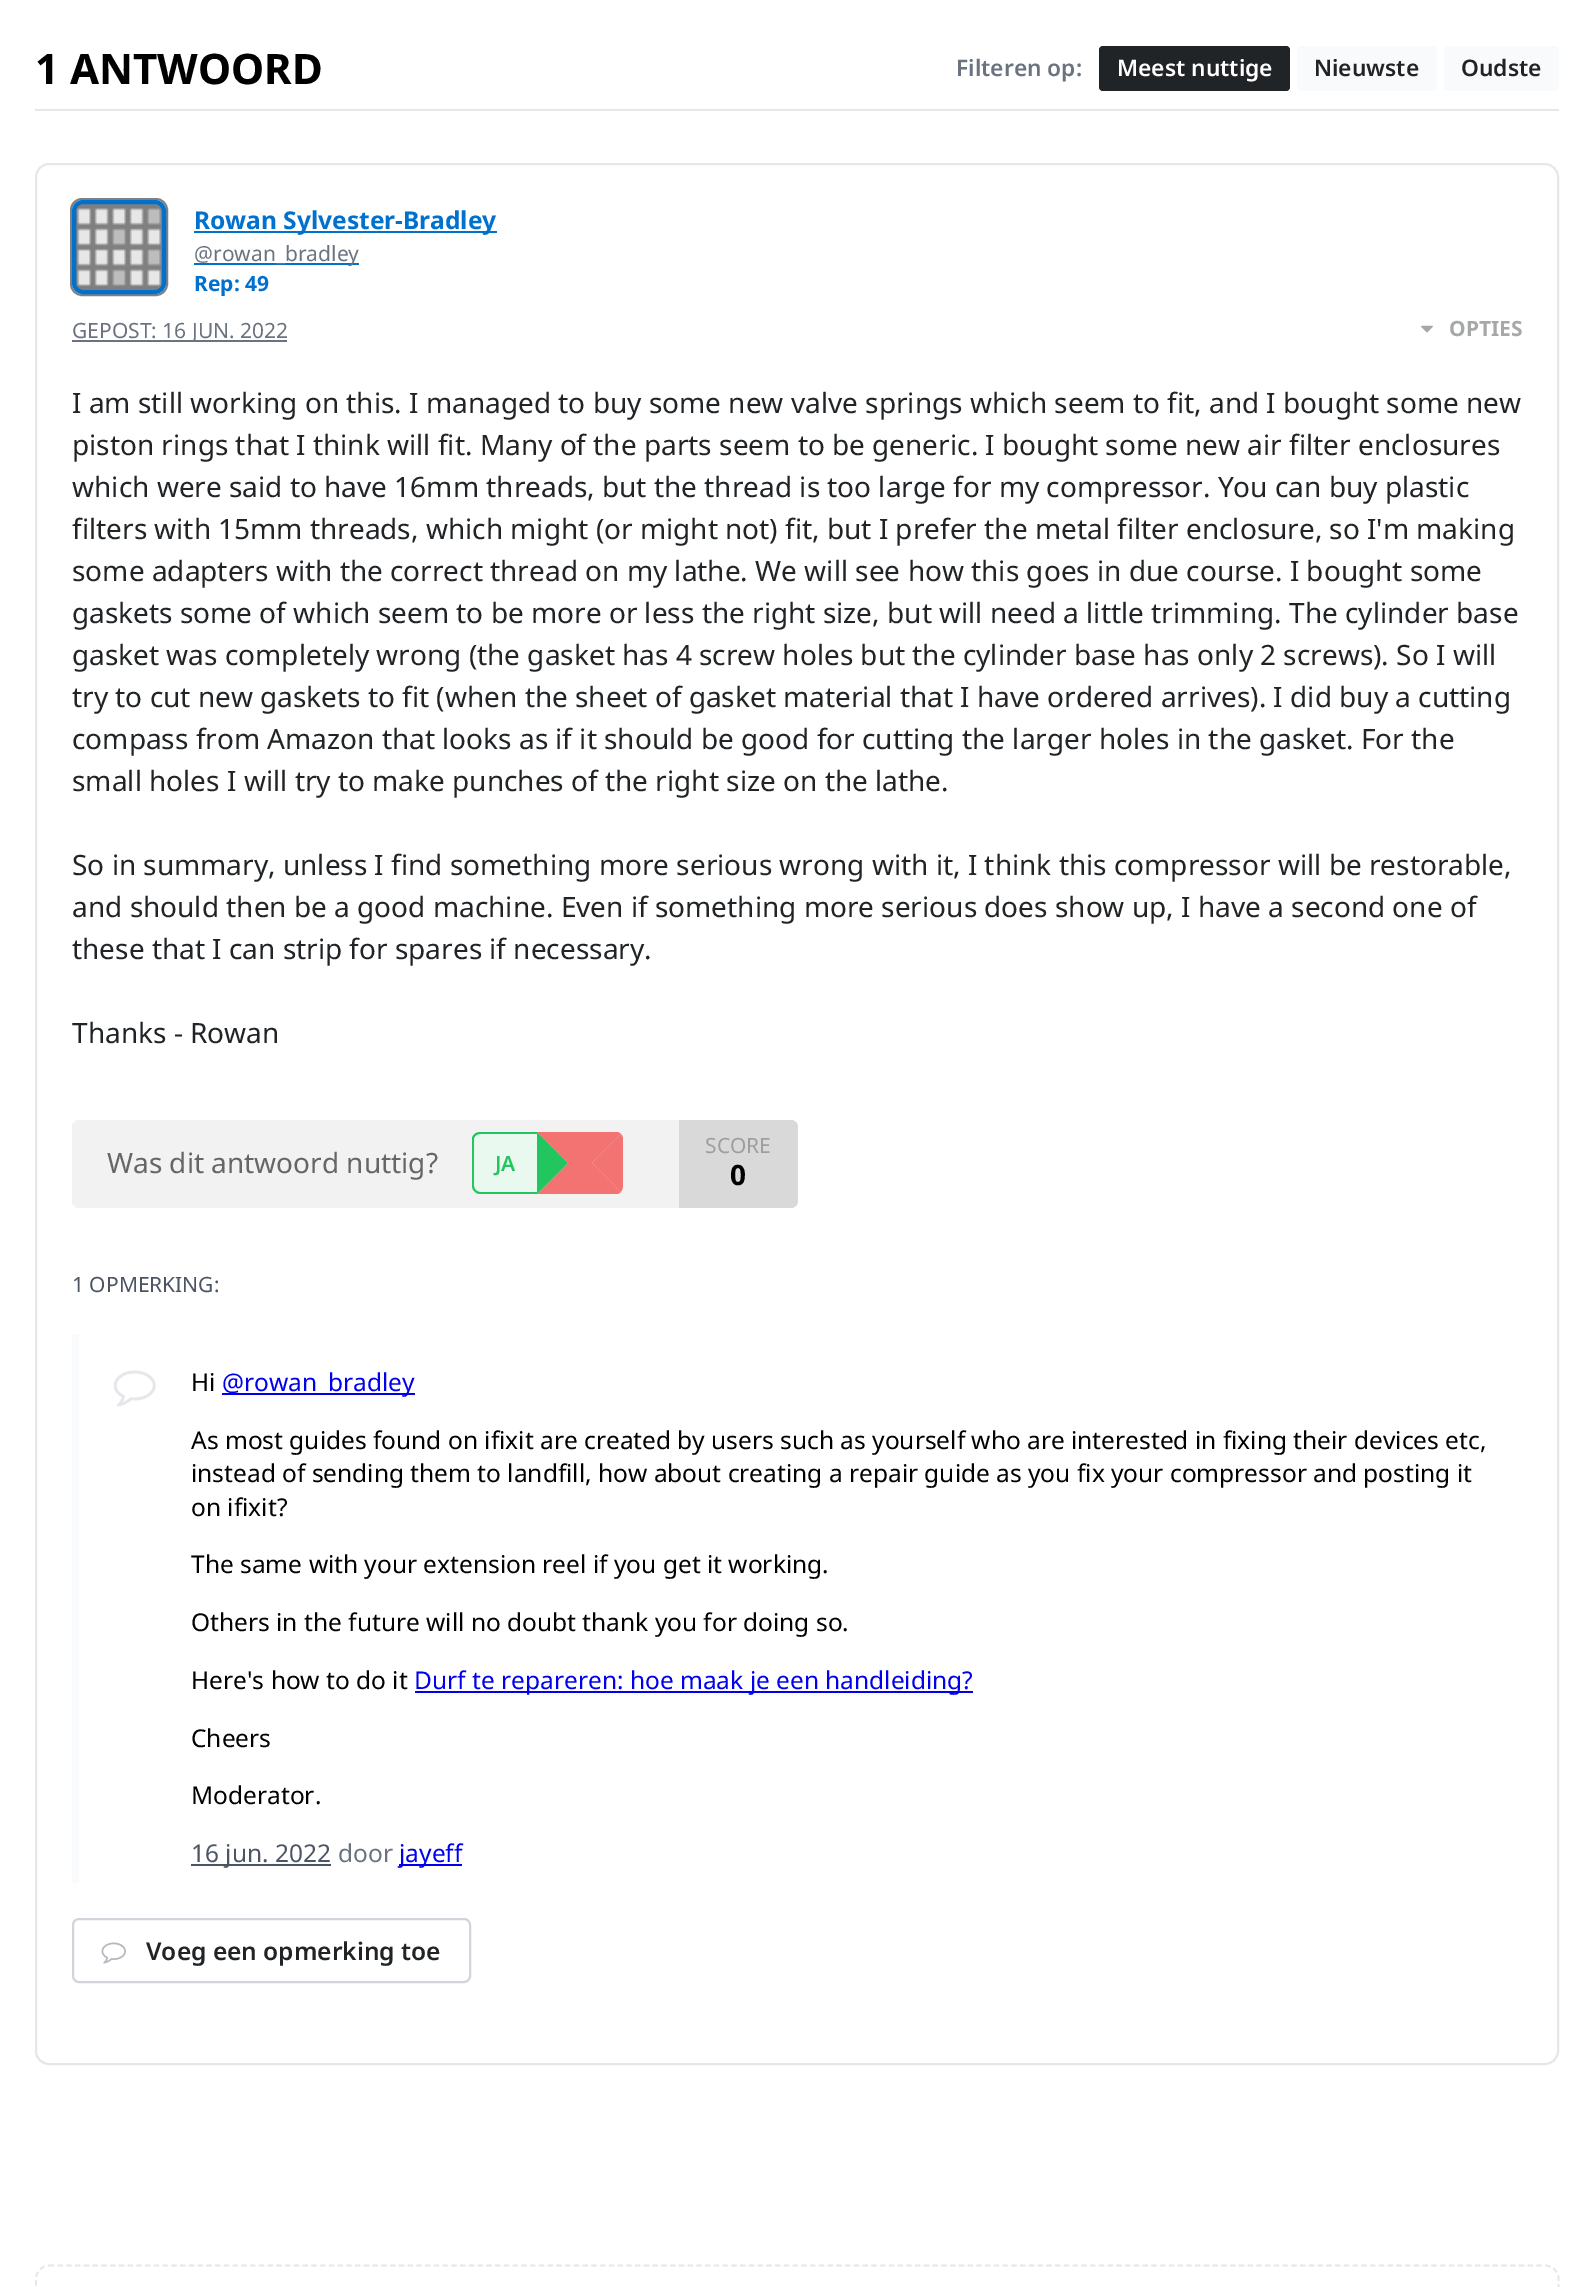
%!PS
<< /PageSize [1594 2287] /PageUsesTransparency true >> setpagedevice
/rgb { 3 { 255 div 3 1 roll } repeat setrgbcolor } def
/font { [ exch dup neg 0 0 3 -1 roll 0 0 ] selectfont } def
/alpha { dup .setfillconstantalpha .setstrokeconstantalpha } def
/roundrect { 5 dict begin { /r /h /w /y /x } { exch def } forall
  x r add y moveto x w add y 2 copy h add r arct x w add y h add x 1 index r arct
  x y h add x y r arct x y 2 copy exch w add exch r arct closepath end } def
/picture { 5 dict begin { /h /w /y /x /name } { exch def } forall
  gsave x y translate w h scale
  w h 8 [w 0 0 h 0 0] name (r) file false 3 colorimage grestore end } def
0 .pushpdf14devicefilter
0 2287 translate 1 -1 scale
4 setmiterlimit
255 255 255 rgb
0 0 1594 2287 rectfill
229 231 235 rgb
35 109 1524 2 rectfill
33 36 38 rgb
1099 46 191 45 4 roundrect fill
249 250 251 rgb
1297 46 140 45 4 roundrect fill
1444 46 115 45 4 roundrect fill
229 231 235 rgb
2 setlinewidth
36 164 1522 1900 13 roundrect stroke
128 128 128 rgb
71 199 96 96 11 roundrect stroke
0.5 alpha
0 0 0 rgb
74 202 90 90 9 roundrect fill
1 alpha
0 113 206 rgb
4 setlinewidth
74 202 90 90 9 roundrect stroke
(img/1.rgb) 77 208 84 78 picture
[
  [194 231 303 2 0 113 206]
  [194 263 165 2 0 113 206]
  [72 340 215 2 107 114 128]
] { aload pop rgb rectfill } forall
(img/2.rgb) 1421 325 12 8 picture
242 242 242 rgb
72 1120 726 88 7 roundrect fill
233 249 239 rgb
480 1132 moveto 537 1132 lineto 537 1194 lineto 480 1194 lineto 476 1194 473 1191 473 1187 curveto 473 1139 lineto 473 1135 476 1132 480 1132 curveto closepath fill
34 197 94 rgb
480 1132 moveto 537 1132 lineto 537 1194 lineto 480 1194 lineto 476 1194 472 1190 472 1186 curveto 472 1139 lineto 472 1135 476 1132 480 1132 curveto closepath 480 1134 moveto 537 1134 lineto 537 1192 lineto 480 1192 lineto 477 1192 474 1189 474 1186 curveto 474 1139 lineto 474 1136 477 1134 480 1134 curveto closepath eofill
255 255 255 rgb
537 1132 moveto 616 1132 lineto 620 1132 623 1135 623 1139 curveto 623 1187 lineto 623 1191 620 1194 616 1194 curveto 537 1194 lineto closepath fill
243 115 115 rgb
537 1132 moveto 568 1163 lineto 592 1163 lineto 621 1134 lineto 618 1132 lineto closepath fill
621 1134 moveto 592 1163 lineto 621 1192 lineto 622 1190 623 1188 623 1186 curveto 623 1139 lineto 623 1137 622 1135 621 1134 curveto closepath fill
621 1192 moveto 592 1163 lineto 568 1163 lineto 537 1194 lineto 618 1194 lineto closepath fill
34 197 94 rgb
537 1194 moveto 568 1163 lineto 537 1132 lineto closepath fill
0.1 alpha
0 0 0 rgb
679 1120 moveto 791 1120 lineto 795 1120 798 1123 798 1127 curveto 798 1201 lineto 798 1205 795 1208 791 1208 curveto 679 1208 lineto closepath fill
1 alpha
249 250 251 rgb
72 1334 7 549 rectfill
(img/3.rgb) 113 1370 43 37 picture
[
  [222 1393 193 2 0 0 238]
  [415 1691 558 2 0 0 238]
  [191 1864 140 2 75 85 99]
  [399 1864 63 2 0 0 238]
] { aload pop rgb rectfill } forall
209 213 219 rgb
2 setlinewidth
73 1919 397 63 6 roundrect stroke
(img/4.rgb) 101 1942 25 22 picture
229 231 235 rgb
1.8 setlinewidth
[5.25 3.5] 0 setdash
49 2265.5 moveto 1545 2265.5 lineto 1552.5 2265.5 1558.5 2271.5 1558.5 2278.5 curveto 1558.5 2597 lineto 1558.5 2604 1552.5 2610 1545 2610 curveto 49 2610 lineto 42 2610 36 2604 36 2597 curveto 36 2278.5 lineto 36 2271.5 42 2265.5 49 2265.5 curveto closepath stroke
/NotoSans-Bold 42 font
0 0 0 rgb
35 84 moveto (1 ANTWOORD) show
/NotoSans-SemiBold 22.75 font
107 114 128 rgb
956 76 moveto (Filteren op:) show
255 255 255 rgb
1117 76 moveto (Meest nuttige) show
33 36 38 rgb
1314 76 moveto (Nieuwste) show
1461 76 moveto (Oudste) show
/NotoSans-Bold 24.5 font
0 113 206 rgb
194 229 moveto (Rowan Sylvester-Bradley) show
/NotoSans-Regular 21 font
107 114 128 rgb
194 261 moveto (@rowan_bradley) show
/NotoSans-Bold 21 font
0 113 206 rgb
194 291 moveto (Rep: 49) show
/NotoSans-Regular 21 font
107 114 128 rgb
72 338 moveto (GEPOST: 16 JUN. 2022) show
/NotoSans-Bold 21 font
166 167 168 rgb
1449 336 moveto (OPTIES) show
/NotoSans-Regular 28 font
33 36 38 rgb
[
  [(I am still working on this. I managed to buy some new valve springs which seem to fit, and I bought some new) 72 413]
  [(piston rings that I think will fit. Many of the parts seem to be generic. I bought some new air filter enclosures) 72 455]
  [(which were said to have 16mm threads, but the thread is too large for my compressor. You can buy plastic) 72 497]
  [(filters with 15mm threads, which might \(or might not\) fit, but I prefer the metal filter enclosure, so I'm making) 72 539]
  [(some adapters with the correct thread on my lathe. We will see how this goes in due course. I bought some) 72 581]
  [(gaskets some of which seem to be more or less the right size, but will need a little trimming. The cylinder base) 72 623]
  [(gasket was completely wrong \(the gasket has 4 screw holes but the cylinder base has only 2 screws\). So I will) 72 665]
  [(try to cut new gaskets to fit \(when the sheet of gasket material that I have ordered arrives\). I did buy a cutting) 72 707]
  [(compass from Amazon that looks as if it should be good for cutting the larger holes in the gasket. For the) 72 749]
  [(small holes I will try to make punches of the right size on the lathe.) 72 791]
  [(So in summary, unless I find something more serious wrong with it, I think this compressor will be restorable,) 72 875]
  [(and should then be a good machine. Even if something more serious does show up, I have a second one of) 72 917]
  [(these that I can strip for spares if necessary.) 72 959]
  [(Thanks - Rowan) 72 1043]
] { aload pop moveto show } forall
102 102 102 rgb
107 1173 moveto (Was dit antwoord nuttig?) show
/NotoSans-SemiBold 21 font
34 197 94 rgb
495 1171 moveto (JA) show
/NotoSans-Regular 21 font
158 158 158 rgb
705 1153 moveto (SCORE) show
/NotoSans-Bold 28 font
0 0 0 rgb
730 1185 moveto (0) show
/NotoSans-Regular 21 font
75 85 99 rgb
72 1292 moveto (1 OPMERKING:) show
/NotoSans-Regular 24.5 font
0 0 0 rgb
191 1391 moveto (Hi) show
0 0 238 rgb
222 1391 moveto (@rowan_bradley) show
0 0 0 rgb
[
  [(As most guides found on ifixit are created by users such as yourself who are interested in fixing their devices etc,) 191 1449]
  [(instead of sending them to landfill, how about creating a repair guide as you fix your compressor and posting it) 191 1482]
  [(on ifixit?) 191 1516]
  [(The same with your extension reel if you get it working.) 191 1573]
  [(Others in the future will no doubt thank you for doing so.) 191 1631]
  [(Here's how to do it) 191 1689]
] { aload pop moveto show } forall
0 0 238 rgb
414 1689 moveto (Durf te repareren: hoe maak je een handleiding?) show
0 0 0 rgb
191 1747 moveto (Cheers) show
191 1804 moveto (Moderator.) show
75 85 99 rgb
191 1862 moveto (16 jun. 2022) show
107 114 128 rgb
338 1862 moveto (door) show
0 0 238 rgb
399 1862 moveto (jayeff) show
/NotoSans-SemiBold 24.5 font
33 36 38 rgb
146 1960 moveto (Voeg een opmerking toe) show
.poppdf14devicefilter showpage
